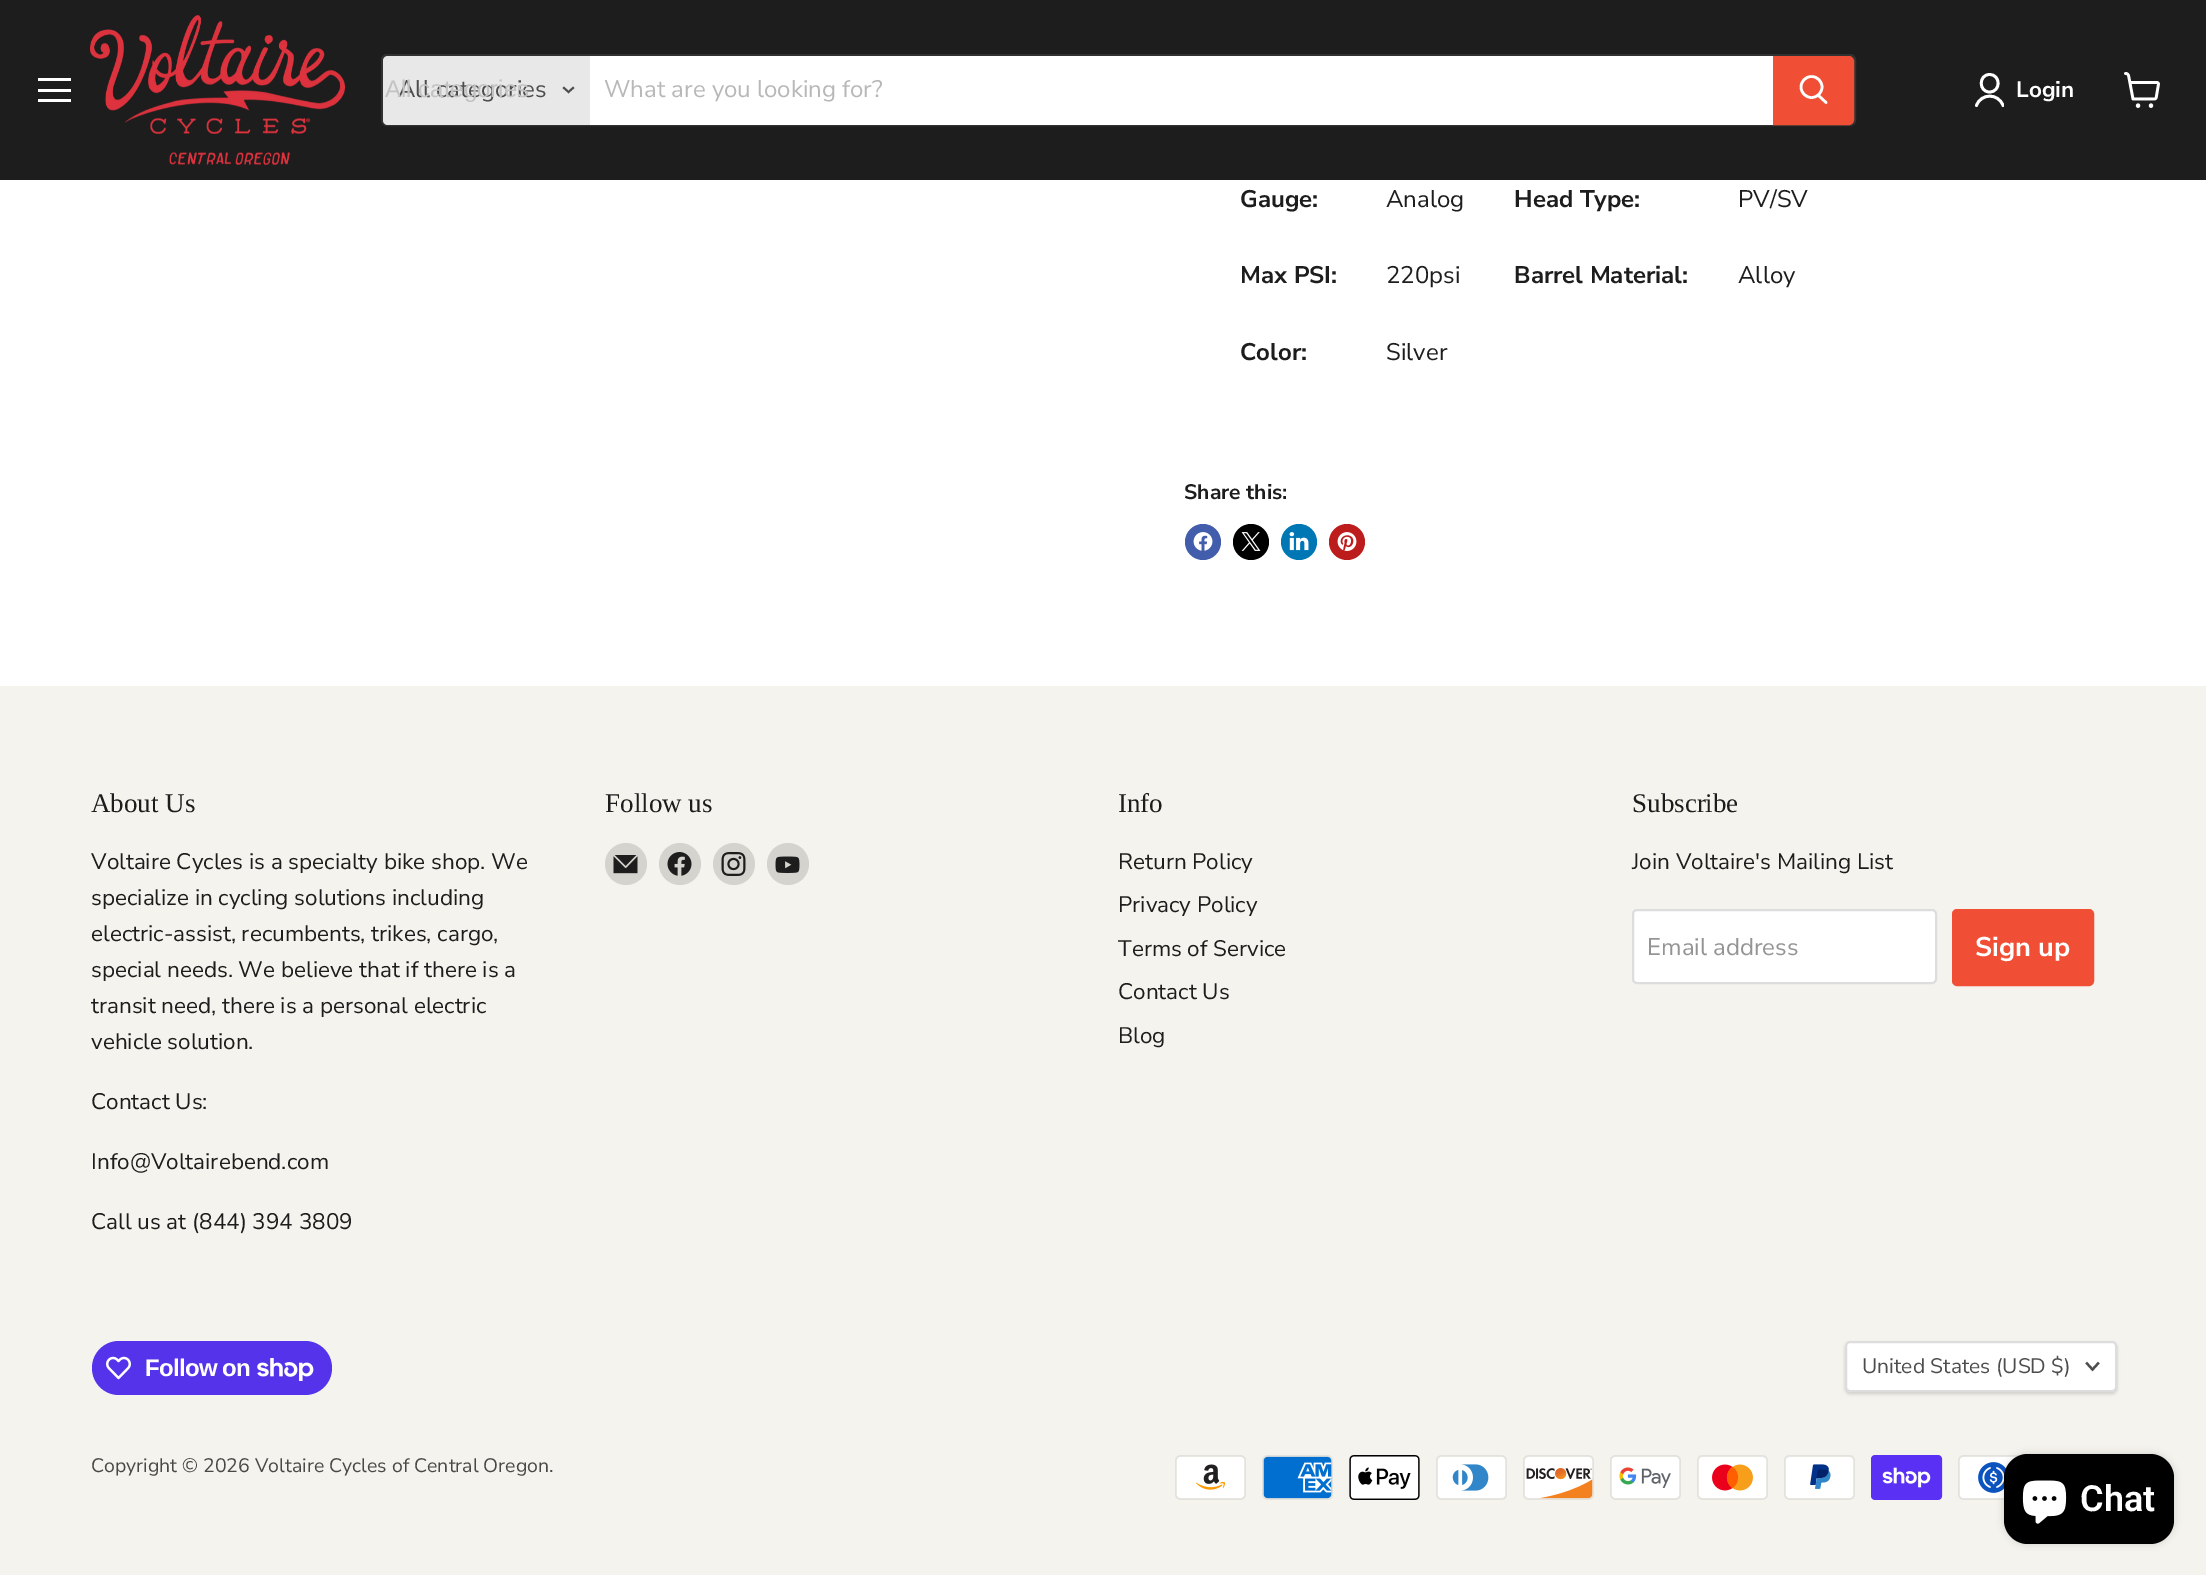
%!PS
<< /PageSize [2206 1575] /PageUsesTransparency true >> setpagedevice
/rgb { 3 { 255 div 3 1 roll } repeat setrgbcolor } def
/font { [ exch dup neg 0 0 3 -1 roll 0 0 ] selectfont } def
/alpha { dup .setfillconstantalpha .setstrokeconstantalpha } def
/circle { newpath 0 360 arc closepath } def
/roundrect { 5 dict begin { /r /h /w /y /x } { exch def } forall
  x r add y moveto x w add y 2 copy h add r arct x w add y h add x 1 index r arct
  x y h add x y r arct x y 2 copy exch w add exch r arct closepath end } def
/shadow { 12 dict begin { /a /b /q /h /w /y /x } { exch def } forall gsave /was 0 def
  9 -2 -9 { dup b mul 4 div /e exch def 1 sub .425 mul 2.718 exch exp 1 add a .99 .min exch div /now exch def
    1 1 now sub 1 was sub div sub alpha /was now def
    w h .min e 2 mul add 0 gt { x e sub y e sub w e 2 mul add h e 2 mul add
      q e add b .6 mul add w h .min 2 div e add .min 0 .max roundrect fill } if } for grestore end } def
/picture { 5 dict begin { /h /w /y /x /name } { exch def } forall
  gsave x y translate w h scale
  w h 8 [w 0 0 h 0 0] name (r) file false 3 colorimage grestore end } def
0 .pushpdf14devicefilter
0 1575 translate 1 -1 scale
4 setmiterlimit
255 255 255 rgb
0 0 2206 1575 rectfill
[
  [0 0 2206 180 29 29 29]
  [38 78 33 3 255 255 255]
  [38 89 33 3 255 255 255]
  [38 99 33 3 255 255 255]
] { aload pop rgb rectfill } forall
(img/1.rgb) 90 15 255 150 picture
0.2 alpha
128 128 128 rgb
2 setlinewidth
382 55 1473 70 5 roundrect stroke
1 alpha
232 232 232 rgb
388 56 moveto 590 56 lineto 590 125 lineto 388 125 lineto 385 125 383 123 383 120 curveto 383 61 lineto 383 58 385 56 388 56 curveto closepath fill
77 77 77 rgb
1.9 setlinewidth
2 setlinecap
568.5 92 moveto 573 88 lineto 568.5 92 moveto 564 88 lineto stroke
255 255 255 rgb
590 56 1183 69 rectfill
240 79 54 rgb
1774 57 moveto 1849 57 lineto 1851 57 1853 59 1853 61 curveto 1853 120 lineto 1853 122 1851 124 1849 124 curveto 1774 124 lineto closepath gsave fill grestore
2 setlinewidth
0 setlinecap
stroke
255 255 255 rgb
2.6 setlinewidth
1 setlinecap
1826 102.5 moveto 1818.5 95.5 lineto stroke
0 setlinecap
1811.5 87 10.5 circle stroke
2.8 setlinewidth
1 setlinecap
1 setlinejoin
1989.5 92 moveto 2001 92 2001 74.5 1989.5 74.5 curveto 1978.5 74.5 1978.5 92 1989.5 92 curveto closepath stroke
gsave
1974 72 30 36 rectclip
2003 105.5 moveto 1998.5 93 1981 93 1976.5 105.5 curveto stroke
grestore
(img/2.rgb) 2124 72 36 36 picture
66 93 171 rgb
1203 542 18 circle fill
(img/3.rgb) 1193 532 20 19 picture
0 0 0 rgb
1251 542 18 circle fill
(img/4.rgb) 1241 532 20 19 picture
0 119 181 rgb
1299 542 18 circle fill
(img/5.rgb) 1289 532 20 19 picture
189 28 28 rgb
1347 542 18 circle fill
(img/6.rgb) 1337 532 20 19 picture
245 243 237 rgb
0 686 2206 889 rectfill
213 211 206 rgb
626 864 21 circle fill
(img/7.rgb) 613 855 25 19 picture
680 864 21 circle fill
(img/8.rgb) 667 852 25 24 picture
734 864 21 circle fill
(img/9.rgb) 721 852 25 24 picture
788 864 21 circle fill
(img/10.rgb) 775 856 25 17 picture
255 255 255 rgb
1633 910 303 73 4 roundrect gsave fill grestore
221 221 221 rgb
2 setlinewidth
0 setlinecap
0 setlinejoin
stroke
240 79 54 rgb
1953 910 140 75 4 roundrect gsave fill grestore
stroke
84 51 235 rgb
92 1341 240 54 27 roundrect fill
(img/11.rgb) 106 1356 25 24 picture
(img/12.rgb) 257 1358 57 23 picture
0 0 0 rgb
1845 1343 272 51 5 1.5 0.15 shadow
255 255 255 rgb
1846 1342 270 49 4 roundrect gsave fill grestore
221 221 221 rgb
stroke
77 77 77 rgb
2.3 setlinewidth
2 setlinecap
2092.5 1369.5 moveto 2098 1363.5 lineto 2092.5 1369.5 moveto 2087 1363.5 lineto stroke
(img/13.rgb) 1175 1455 71 45 picture
(img/14.rgb) 1262 1455 71 45 picture
(img/15.rgb) 1349 1455 71 45 picture
(img/16.rgb) 1436 1455 71 45 picture
(img/17.rgb) 1523 1455 71 45 picture
(img/18.rgb) 1610 1455 71 45 picture
(img/19.rgb) 1697 1455 71 45 picture
(img/20.rgb) 1784 1455 71 45 picture
(img/21.rgb) 1871 1455 72 45 picture
(img/22.rgb) 1958 1455 63 45 picture
0 0 0 rgb
2004 1454 170 90 24 4 0.15 shadow
2004 1454 170 90 24 roundrect fill
(img/23.rgb) 2022 1480 45 44 picture
/NunitoSans-Regular 24 font
77 77 77 rgb
398 97 moveto (All categories) show
/LiberationSans-Regular 24 font
195 195 195 rgb
385 97 moveto (All categories) show
/NunitoSans-Regular 24 font
184 184 184 rgb
604 97 moveto (What are you looking for?) show
/NunitoSans-Bold 22.5 font
255 255 255 rgb
2016 97 moveto (Login) show
/NunitoSans-Bold 24 font
29 29 29 rgb
1240 207 moveto (Gauge:) show
/NunitoSans-Regular 24 font
1386 207 moveto (Analog) show
/NunitoSans-Bold 24 font
1514 207 moveto (Head Type:) show
/NunitoSans-Regular 24 font
1738 207 moveto (PV/SV) show
/NunitoSans-Bold 24 font
1240 283 moveto (Max PSI:) show
/NunitoSans-Regular 24 font
1386 283 moveto (220psi) show
/NunitoSans-Bold 24 font
1514 283 moveto (Barrel Material:) show
/NunitoSans-Regular 24 font
1738 283 moveto (Alloy) show
/NunitoSans-Bold 24 font
1240 360 moveto (Color:) show
/NunitoSans-Regular 24 font
1386 360 moveto (Silver) show
/NunitoSans-Bold 21 font
1184 499 moveto (Share this:) show
/LiberationSerif-Regular 27 font
91 812 moveto (About Us) show
/NunitoSans-Regular 22.5 font
[
  [(Voltaire Cycles is a specialty bike shop. We) 91 869]
  [(specialize in cycling solutions including) 91 905]
  [(electric-assist, recumbents, trikes, cargo,) 91 941]
  [(special needs. We believe that if there is a) 91 977]
  [(transit need, there is a personal electric) 91 1013]
  [(vehicle solution.) 91 1049]
  [(Contact Us:) 91 1109]
  [(Info@Voltairebend.com) 91 1169]
  [(Call us at \(844\) 394 3809) 91 1229]
] { aload pop moveto show } forall
/LiberationSerif-Regular 27 font
605 812 moveto (Follow us) show
1118 812 moveto (Info) show
/NunitoSans-Regular 22.5 font
[
  [(Return Policy) 1118 869]
  [(Privacy Policy) 1118 912]
  [(Terms of Service) 1118 956]
  [(Contact Us) 1118 999]
  [(Blog) 1118 1043]
] { aload pop moveto show } forall
/LiberationSerif-Regular 27 font
1632 812 moveto (Subscribe) show
/NunitoSans-Regular 22.5 font
1632 869 moveto (Join Voltaire's Mailing List) show
/NunitoSans-Regular 24 font
148 148 148 rgb
1647 955 moveto (Email address) show
/NunitoSans-Bold 27 font
255 255 255 rgb
1975 956 moveto (Sign up) show
/LiberationSans-Bold 24 font
145 1376 moveto -0.75 0 (Follow on) ashow
/NunitoSans-Regular 21 font
77 77 77 rgb
1862 1373 moveto (United States \(USD $\)) show
/NunitoSans-Regular 19.5 font
72 72 71 rgb
91 1472 moveto (Copyright © 2026 Voltaire Cycles of Central Oregon.) show
/Roboto-SemiBold 36 font
255 255 255 rgb
2080 1511 moveto (Chat) show
.poppdf14devicefilter showpage
